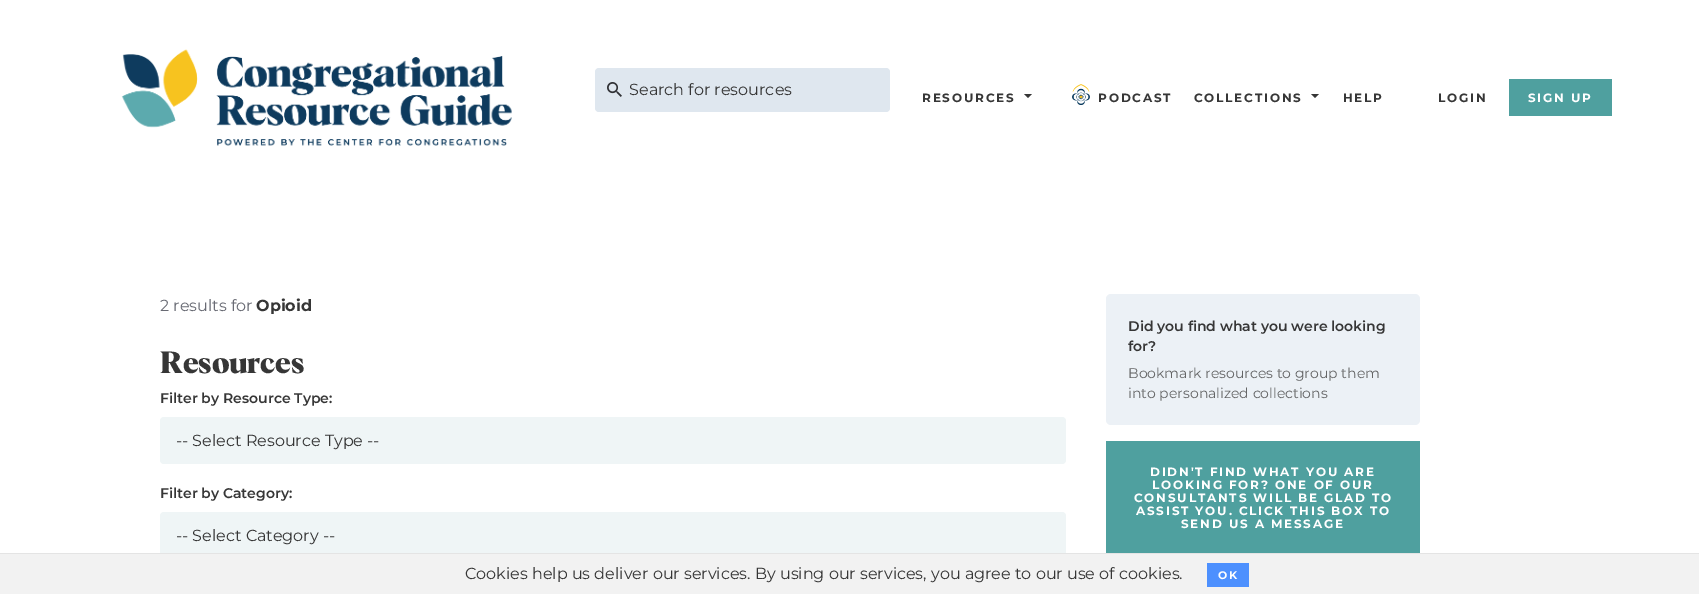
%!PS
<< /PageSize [1699 594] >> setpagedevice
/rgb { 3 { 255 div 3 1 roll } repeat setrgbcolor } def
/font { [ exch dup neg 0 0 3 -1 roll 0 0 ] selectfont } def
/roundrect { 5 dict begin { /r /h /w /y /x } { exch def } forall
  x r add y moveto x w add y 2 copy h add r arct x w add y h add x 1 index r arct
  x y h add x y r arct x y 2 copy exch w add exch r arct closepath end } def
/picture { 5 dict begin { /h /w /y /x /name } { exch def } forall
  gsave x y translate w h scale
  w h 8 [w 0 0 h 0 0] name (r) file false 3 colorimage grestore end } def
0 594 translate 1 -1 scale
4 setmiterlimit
255 255 255 rgb
0 0 1699 594 rectfill
(img/1.rgb) 121 49 391 97 picture
223 231 239 rgb
595 68 295 44 4 roundrect fill
(img/2.rgb) 607 82 15 15 picture
54 54 54 rgb
1024 94 moveto 1032 94 lineto 1028 98 lineto closepath fill
(img/3.rgb) 1072 84 18 21 picture
1311 94 moveto 1319 94 lineto 1315 98 lineto closepath fill
79 160 159 rgb
1509 79 103 37 rectfill
239 245 246 rgb
160 417 906 47 4 roundrect fill
160 512 906 47 4 roundrect fill
236 241 246 rgb
1106 294 314 131 5 roundrect fill
[
  [1106 441 314 112 79 160 159]
  [0 554 1699 40 242 242 242]
  [0 553 1699 1 228 228 228]
  [1207 563 42 24 77 144 254]
] { aload pop rgb rectfill } forall
/Montserrat-Regular 16 font
54 54 54 rgb
629 95 moveto (Search for resources) show
/Montserrat-Bold 12 font
922 102 moveto 1.8 0 (RESOURCES) ashow
1098 102 moveto 1.8 0 (PODCAST) ashow
1194 102 moveto 1.8 0 (COLLECTIONS) ashow
1343 102 moveto 1.8 0 (HELP) ashow
1438 102 moveto 1.8 0 (LOGIN) ashow
255 255 255 rgb
1528 102 moveto 1.8 0 (SIGN UP) ashow
/Montserrat-Regular 16 font
105 107 116 rgb
160 311 moveto (2 results for) show
/Montserrat-Bold 16 font
54 54 54 rgb
256 311 moveto (Opioid) show
/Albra-Bold 30 font
160 373 moveto -0.25 0 (Resources) ashow
/Montserrat-SemiBold 14 font
160 403 moveto (Filter by Resource Type:) show
/Montserrat-Regular 16 font
176 446 moveto (-- Select Resource Type --) show
/Montserrat-SemiBold 14 font
160 498 moveto (Filter by Category:) show
/Montserrat-Regular 16 font
176 541 moveto (-- Select Category --) show
/Montserrat-SemiBold 14 font
1128 331 moveto (Did you find what you were looking) show
1128 351 moveto (for?) show
/Montserrat-Regular 14 font
100 101 102 rgb
1128 378 moveto (Bookmark resources to group them) show
1128 398 moveto (into personalized collections) show
/Montserrat-Bold 12 font
255 255 255 rgb
1150 476 moveto 1.8 0 (DIDN'T FIND WHAT YOU ARE) ashow
1152 489 moveto 1.8 0 (LOOKING FOR? ONE OF OUR) ashow
1134 502 moveto 1.8 0 (CONSULTANTS WILL BE GLAD TO) ashow
1136 515 moveto 1.8 0 (ASSIST YOU. CLICK THIS BOX TO) ashow
1181 528 moveto 1.8 0 (SEND US A MESSAGE) ashow
/Montserrat-Regular 16 font
54 54 54 rgb
465 579 moveto (Cookies help us deliver our services. By using our services, you agree to our use of cookies.) show
/Montserrat-Bold 11 font
255 255 255 rgb
1218 579 moveto 2 0 (OK) ashow
showpage
